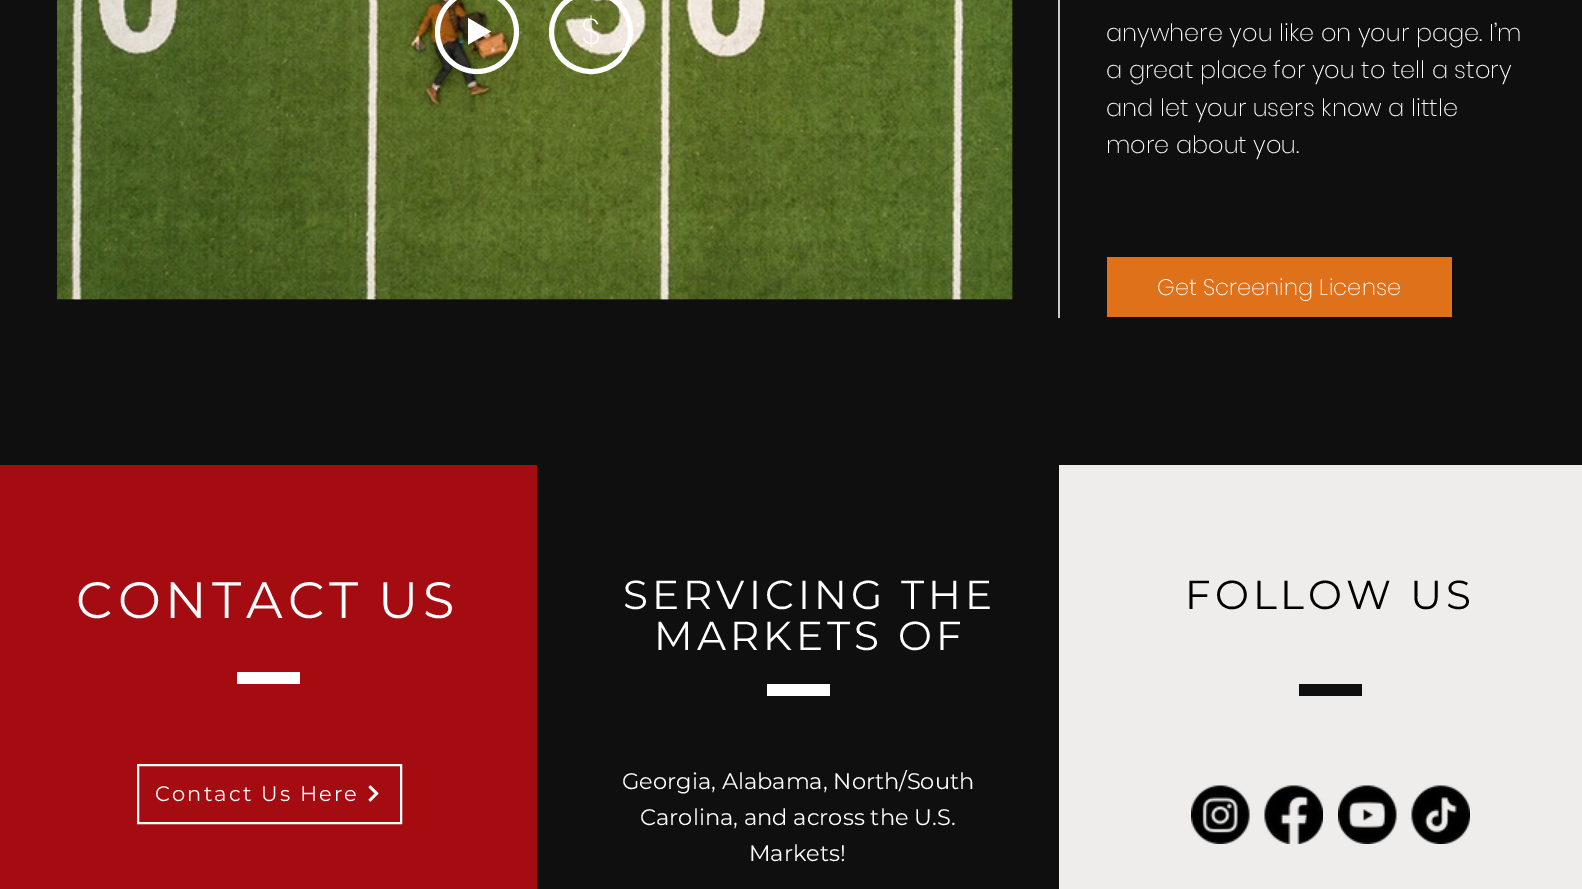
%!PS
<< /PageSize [1582 889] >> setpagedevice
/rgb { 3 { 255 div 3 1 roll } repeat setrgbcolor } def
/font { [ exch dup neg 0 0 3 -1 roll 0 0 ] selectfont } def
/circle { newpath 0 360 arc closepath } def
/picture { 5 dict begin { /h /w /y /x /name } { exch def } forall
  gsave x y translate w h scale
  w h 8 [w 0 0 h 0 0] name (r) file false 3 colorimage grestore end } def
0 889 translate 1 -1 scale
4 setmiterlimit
15 15 15 rgb
0 0 1582 889 rectfill
0 0 0 rgb
57 0 956 300 rectfill
(img/1.rgb) 57 0 956 300 picture
(img/2.rgb) 57 0 956 300 picture
255 255 255 rgb
477 69 moveto 498 69 514 52 514 32 curveto 514 11 498 -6 477 -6 curveto 456 -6 440 11 440 32 curveto 440 52 456 69 477 69 curveto closepath 477 74 moveto 454 74 435 55 435 32 curveto 435 8 454 -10 477 -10 curveto 500 -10 519 8 519 32 curveto 519 55 500 74 477 74 curveto closepath eofill
491 31.5 moveto 468 44.5 lineto 468 18 lineto closepath eofill
5 setlinewidth
591 32 39.5 circle stroke
[
  [1058 0 2 318 204 202 202]
  [1107 257 345 60 223 113 27]
  [0 465 537 424 164 12 18]
  [237 672 63 12 255 255 255]
] { aload pop rgb rectfill } forall
2 setlinewidth
138 765 263 58 rectstroke
(img/3.rgb) 368 785 11 17 picture
[
  [767 684 63 12 255 255 255]
  [1059 465 523 424 239 237 236]
  [1299 684 63 12 15 15 15]
] { aload pop rgb rectfill } forall
(img/4.rgb) 1191 785 59 59 picture
(img/5.rgb) 1264 785 59 59 picture
(img/6.rgb) 1338 785 59 59 picture
(img/7.rgb) 1411 785 59 59 picture
/Poppins-ExtraLight 36 font
255 255 255 rgb
581 44 moveto ($) show
/Poppins-ExtraLight 24 font
[
  [(anywhere you like on your page. I’m) 1106 41]
  [(a great place for you to tell a story) 1106 78]
  [(and let your users know a little) 1106 116]
  [(more about you.) 1106 153]
] { aload pop moveto show } forall
/Poppins-ExtraLight 22.5 font
1157 295 moveto (Get Screening License) show
/Montserrat-Regular 51 font
76 618 moveto 5 0 (CONTACT) ashow
378 618 moveto 5 0 (US) ashow
/Montserrat-Regular 21 font
155 801 moveto 2.1 0 (Contact Us Here) ashow
/Montserrat-Regular 40.5 font
623 609 moveto 4 0 (SERVICING THE) ashow
654 650 moveto 4 0 (MARKETS OF) ashow
/Montserrat-Regular 22.5 font
[
  [(Georgia, Alabama, North/South) 622 789]
  [(Carolina, and across the U.S.) 640 825]
  [(Markets!) 749 861]
] { aload pop moveto show } forall
/Montserrat-Regular 40.5 font
0 0 0 rgb
1185 609 moveto 4 0 (FOLLOW US) ashow
showpage
